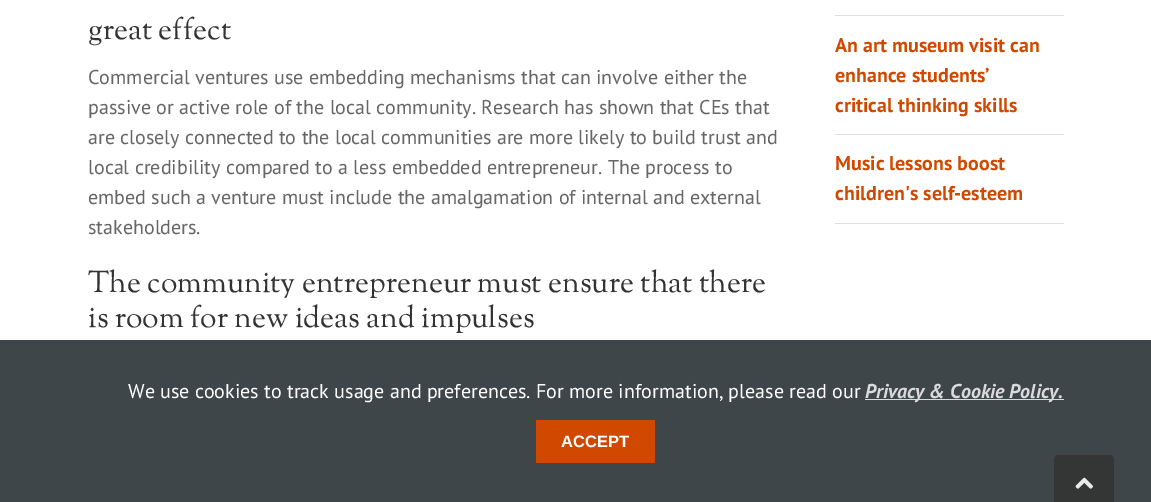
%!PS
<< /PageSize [1151 502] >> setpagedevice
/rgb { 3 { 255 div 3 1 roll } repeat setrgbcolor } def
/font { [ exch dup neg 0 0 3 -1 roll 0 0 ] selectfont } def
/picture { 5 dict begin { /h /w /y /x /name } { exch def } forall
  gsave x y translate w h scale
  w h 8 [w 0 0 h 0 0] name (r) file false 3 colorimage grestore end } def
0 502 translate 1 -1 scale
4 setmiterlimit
255 255 255 rgb
0 0 1151 502 rectfill
[
  [835 15 229 1 224 222 222]
  [835 134 229 1 224 222 222]
  [835 223 229 1 224 222 222]
  [0 340 1151 162 63 70 74]
  [865 399 199 1 217 218 219]
  [536 420 119 43 209 73 0]
] { aload pop rgb rectfill } forall
52 53 53 rgb
1059 455 moveto 1109 455 lineto 1112 455 1114 457 1114 460 curveto 1114 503 lineto 1054 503 lineto 1054 460 lineto 1054 457 1056 455 1059 455 curveto closepath fill
(img/1.rgb) 1075 477 18 12 picture
/SortsMillGoudy-Regular 30 font
51 51 51 rgb
88 39 moveto (great effect) show
/PTSans-Regular 20 font
102 102 102 rgb
[
  [(Commercial ventures use embedding mechanisms that can involve either the) 88 84]
  [(passive or active role of the local community. Research has shown that CEs that) 88 114]
  [(are closely connected to the local communities are more likely to build trust and) 88 144]
  [(local credibility compared to a less embedded entrepreneur. The process to) 88 174]
  [(embed such a venture must include the amalgamation of internal and external) 88 204]
  [(stakeholders.) 88 234]
] { aload pop moveto show } forall
/SortsMillGoudy-Regular 30 font
51 51 51 rgb
88 292 moveto (The community entrepreneur must ensure that there) show
88 327 moveto (is room for new ideas and impulses) show
/PTSans-Bold 20 font
209 73 0 rgb
[
  [(An art museum visit can) 835 52]
  [(enhance students’) 835 82]
  [(critical thinking skills) 835 112]
  [(Music lessons boost) 835 170]
  [(children's self-esteem) 835 200]
] { aload pop moveto show } forall
/PTSans-Regular 20 font
255 255 255 rgb
128 398 moveto (We use cookies to track usage and preferences. For more information, please read our) show
/PTSans-BoldItalic 20 font
217 218 219 rgb
865 398 moveto (Privacy & Cookie Policy.) show
/LiberationSans-Bold 16.5 font
255 255 255 rgb
561 447 moveto (ACCEPT) show
showpage
